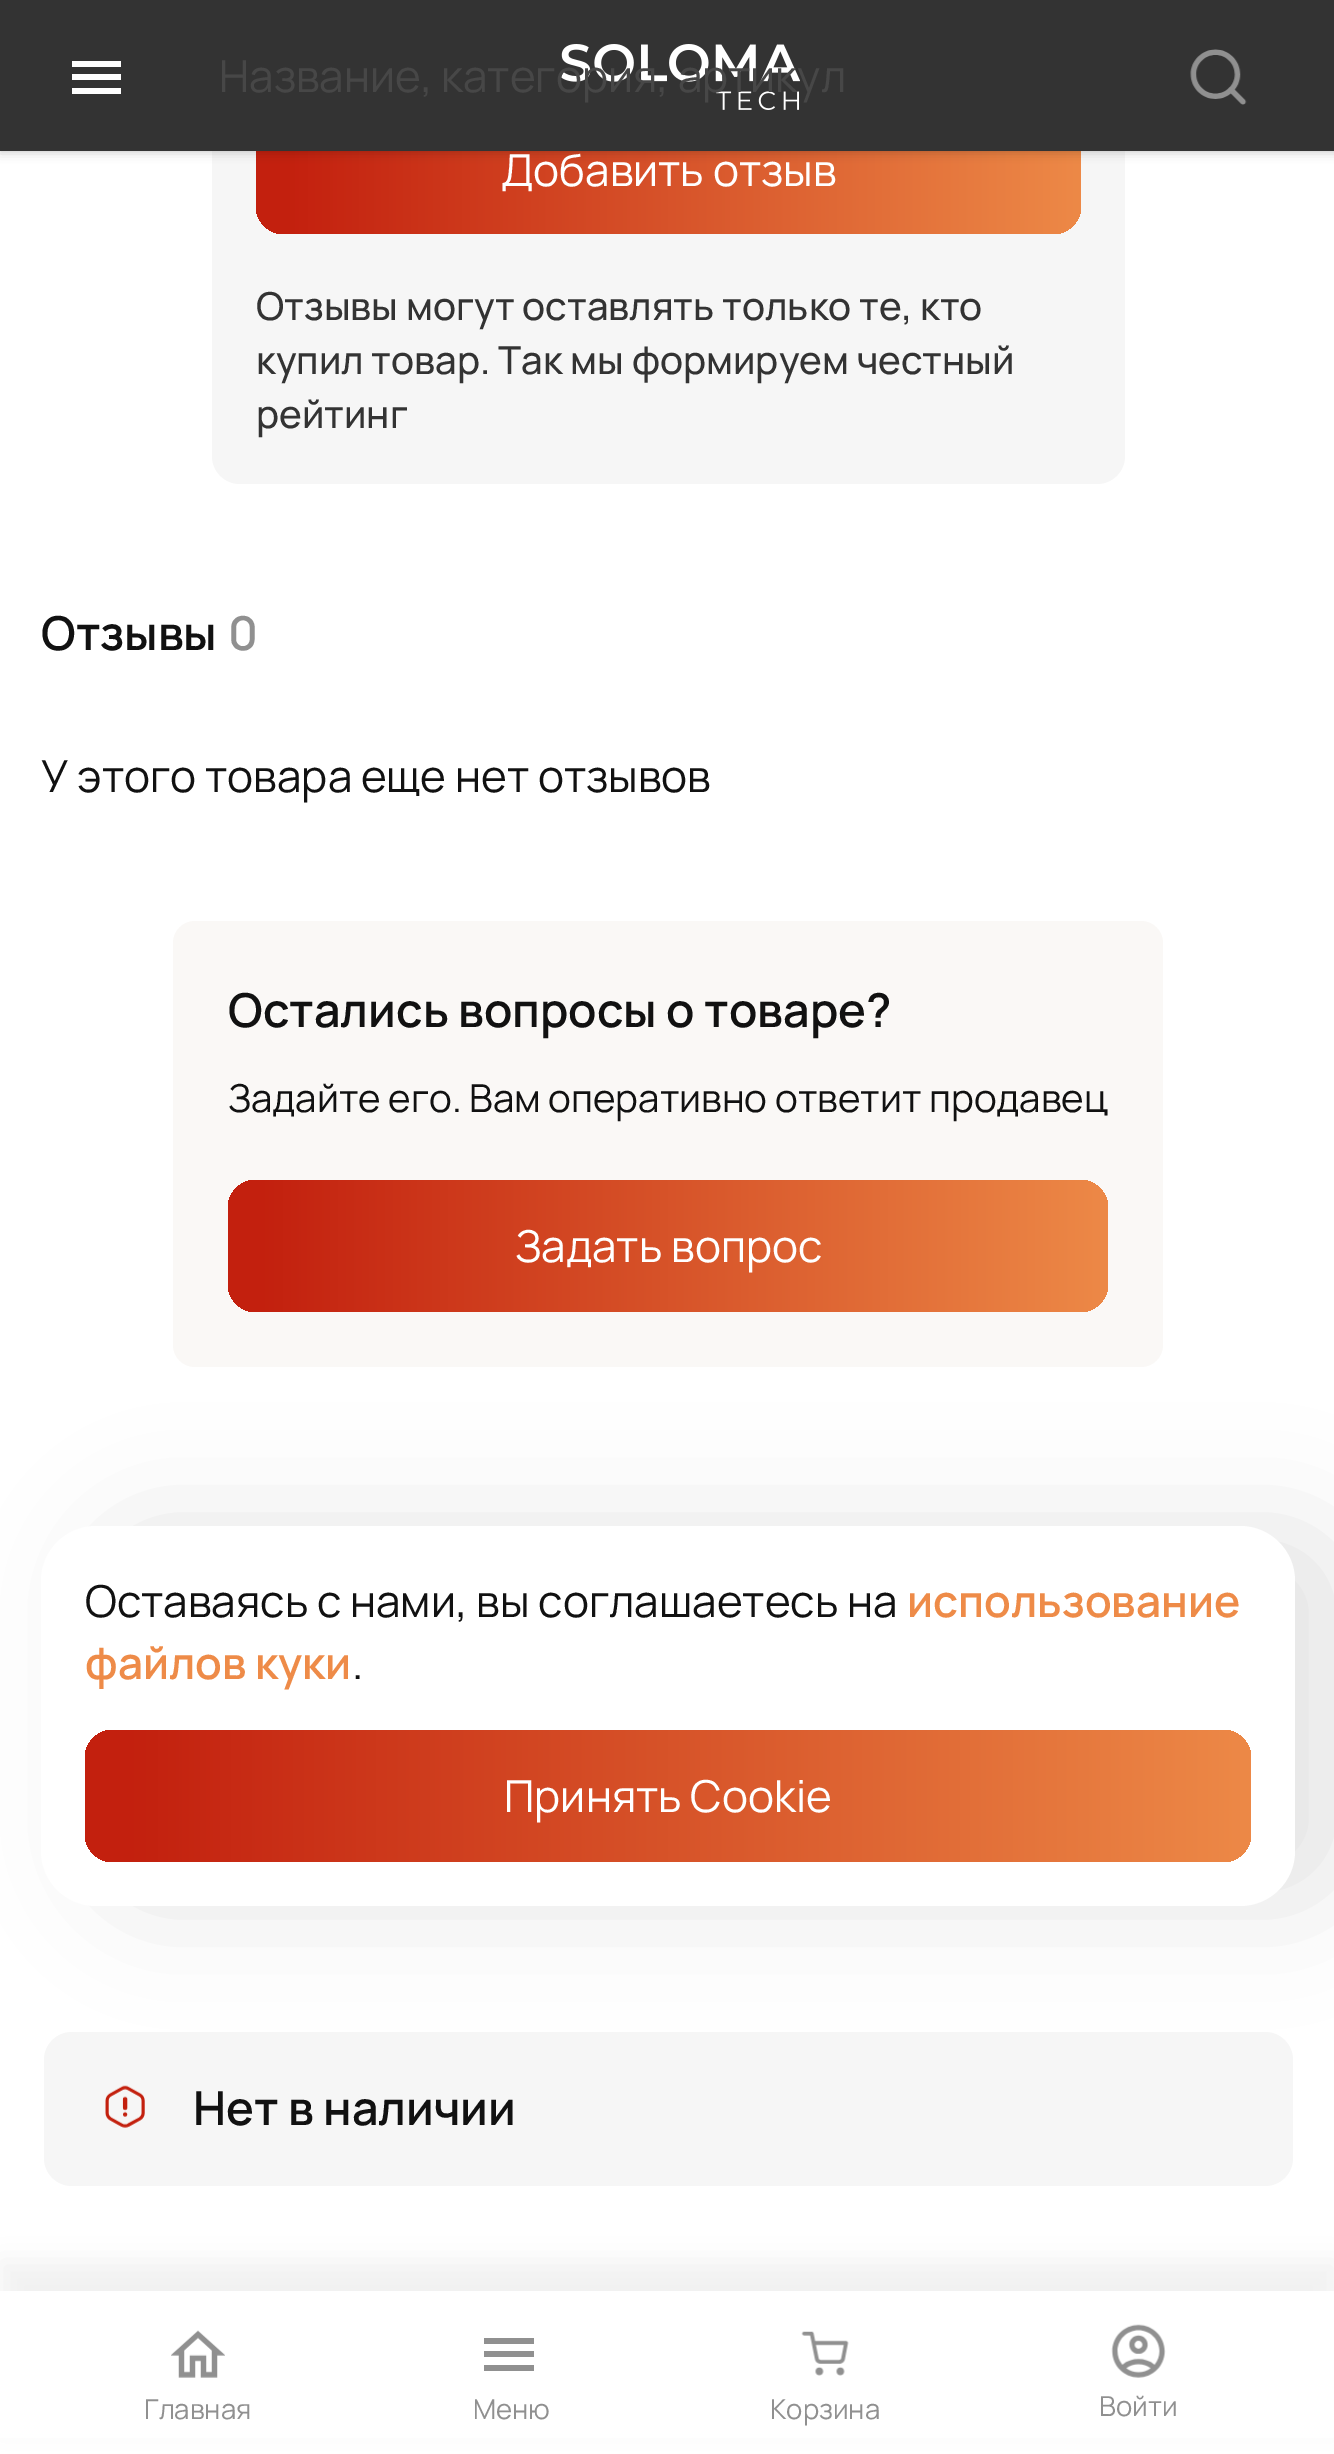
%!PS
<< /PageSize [1334 2454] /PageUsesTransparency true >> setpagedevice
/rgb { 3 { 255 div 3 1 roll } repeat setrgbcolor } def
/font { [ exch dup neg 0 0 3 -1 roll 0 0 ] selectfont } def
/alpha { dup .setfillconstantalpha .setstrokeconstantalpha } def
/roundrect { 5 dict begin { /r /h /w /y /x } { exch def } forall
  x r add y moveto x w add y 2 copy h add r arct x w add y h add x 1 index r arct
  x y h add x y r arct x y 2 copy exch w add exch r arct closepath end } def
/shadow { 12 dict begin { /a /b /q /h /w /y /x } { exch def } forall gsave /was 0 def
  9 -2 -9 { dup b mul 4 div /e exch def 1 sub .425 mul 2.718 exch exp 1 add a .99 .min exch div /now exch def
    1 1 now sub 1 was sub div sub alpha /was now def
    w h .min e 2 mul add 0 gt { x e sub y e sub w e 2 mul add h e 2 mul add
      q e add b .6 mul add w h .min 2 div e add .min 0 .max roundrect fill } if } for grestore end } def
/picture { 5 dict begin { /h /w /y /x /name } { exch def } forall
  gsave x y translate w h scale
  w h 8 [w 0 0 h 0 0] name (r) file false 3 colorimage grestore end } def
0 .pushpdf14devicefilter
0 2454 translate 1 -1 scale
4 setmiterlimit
255 255 255 rgb
0 0 1334 2454 rectfill
246 246 246 rgb
212 -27 913 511 28 roundrect fill
gsave 256 102 825 132 28 roundrect clip newpath
<< /ShadingType 2 /ColorSpace /DeviceRGB /Coords [-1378 168 1097 168] /Extend [true true] /Function << /FunctionType 3 /Domain [0 1] /Functions [<< /FunctionType 2 /Domain [0 1] /C0 [0.933 0.545 0.282] /C1 [0.765 0.125 0.055] /N 1 >> << /FunctionType 2 /Domain [0 1] /C0 [0.765 0.125 0.055] /C1 [0.765 0.125 0.055] /N 1 >> << /FunctionType 2 /Domain [0 1] /C0 [0.765 0.125 0.055] /C1 [0.933 0.545 0.282] /N 1 >>] /Bounds [0.33 0.67] /Encode [0 1 0 1 0 1] >> >> shfill grestore
0 0 0 rgb
0 0 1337 151 0 5.5 0.25 shadow
51 51 51 rgb
0 0 1334 151 rectfill
(img/1.rgb) 561 44 239 66 picture
[
  [72 61 49 6 255 255 255]
  [72 74 49 6 255 255 255]
  [72 88 49 6 255 255 255]
] { aload pop rgb rectfill } forall
(img/2.rgb) 1190 49 57 56 picture
250 248 246 rgb
173 921 990 446 22 roundrect fill
gsave 228 1180 880 132 28 roundrect clip newpath
<< /ShadingType 2 /ColorSpace /DeviceRGB /Coords [-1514 1246 1126 1246] /Extend [true true] /Function << /FunctionType 3 /Domain [0 1] /Functions [<< /FunctionType 2 /Domain [0 1] /C0 [0.933 0.545 0.282] /C1 [0.765 0.125 0.055] /N 1 >> << /FunctionType 2 /Domain [0 1] /C0 [0.765 0.125 0.055] /C1 [0.765 0.125 0.055] /N 1 >> << /FunctionType 2 /Domain [0 1] /C0 [0.765 0.125 0.055] /C1 [0.933 0.545 0.282] /N 1 >>] /Bounds [0.33 0.67] /Encode [0 1 0 1 0 1] >> >> shfill grestore
246 246 246 rgb
44 2032 1249 154 28 roundrect fill
0 0 0 rgb
96 1526 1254 380 55 55 0.1 shadow
255 255 255 rgb
41 1526 1254 380 55 roundrect fill
gsave 85 1730 1166 132 28 roundrect clip newpath
<< /ShadingType 2 /ColorSpace /DeviceRGB /Coords [-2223 1796 1275 1796] /Extend [true true] /Function << /FunctionType 3 /Domain [0 1] /Functions [<< /FunctionType 2 /Domain [0 1] /C0 [0.933 0.545 0.282] /C1 [0.765 0.125 0.055] /N 1 >> << /FunctionType 2 /Domain [0 1] /C0 [0.765 0.125 0.055] /C1 [0.765 0.125 0.055] /N 1 >> << /FunctionType 2 /Domain [0 1] /C0 [0.765 0.125 0.055] /C1 [0.933 0.545 0.282] /N 1 >>] /Bounds [0.33 0.67] /Encode [0 1 0 1 0 1] >> >> shfill grestore
(img/3.rgb) 105 2085 40 43 picture
0 0 0 rgb
0 2261 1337 165 0 14 0.05 shadow
255 255 255 rgb
0 2291 1334 147 rectfill
(img/4.rgb) 171 2330 54 48 picture
[
  [484 2338 50 6 144 144 144]
  [484 2351 50 6 144 144 144]
  [484 2365 50 6 144 144 144]
] { aload pop rgb rectfill } forall
(img/5.rgb) 801 2331 48 45 picture
(img/6.rgb) 1111 2324 55 54 picture
/Manrope-Regular 44 font
71 71 71 rgb
219 92 moveto (Название, категория, артикул) show
255 255 255 rgb
501 186 moveto (Добавить отзыв) show
/Manrope-Medium 38.5 font
51 51 51 rgb
[
  [(Отзывы могут оставлять только те, кто) 256 320]
  [(купил товар. Так мы формируем честный) 256 374]
  [(рейтинг) 256 428]
] { aload pop moveto show } forall
/Manrope-SemiBold 46.75 font
17 17 17 rgb
41 650 moveto (Отзывы) show
144 144 144 rgb
228 650 moveto (0) show
/Manrope-Regular 44 font
17 17 17 rgb
41 792 moveto (У этого товара еще нет отзывов) show
/Manrope-SemiBold 46.75 font
228 1027 moveto (Остались вопросы о товаре?) show
/Manrope-Regular 38.5 font
228 1112 moveto (Задайте его. Вам оперативно ответит продавец) show
/Manrope-Regular 44 font
255 255 255 rgb
515 1262 moveto (Задать вопрос) show
17 17 17 rgb
85 1617 moveto (Оставаясь с нами, вы соглашаетесь на) show
/Manrope-SemiBold 44 font
238 139 72 rgb
907 1617 moveto (использование) show
85 1679 moveto (файлов куки) show
/Manrope-Regular 44 font
17 17 17 rgb
352 1679 moveto (.) show
255 255 255 rgb
504 1812 moveto (Принять Cookie) show
/Manrope-SemiBold 46.75 font
17 17 17 rgb
193 2125 moveto (Нет в наличии) show
/Manrope-Regular 27.5 font
144 144 144 rgb
[
  [(Главная) 144 2419]
  [(Меню) 473 2419]
  [(Корзина) 770 2419]
  [(Войти) 1099 2416]
] { aload pop moveto show } forall
.poppdf14devicefilter showpage
